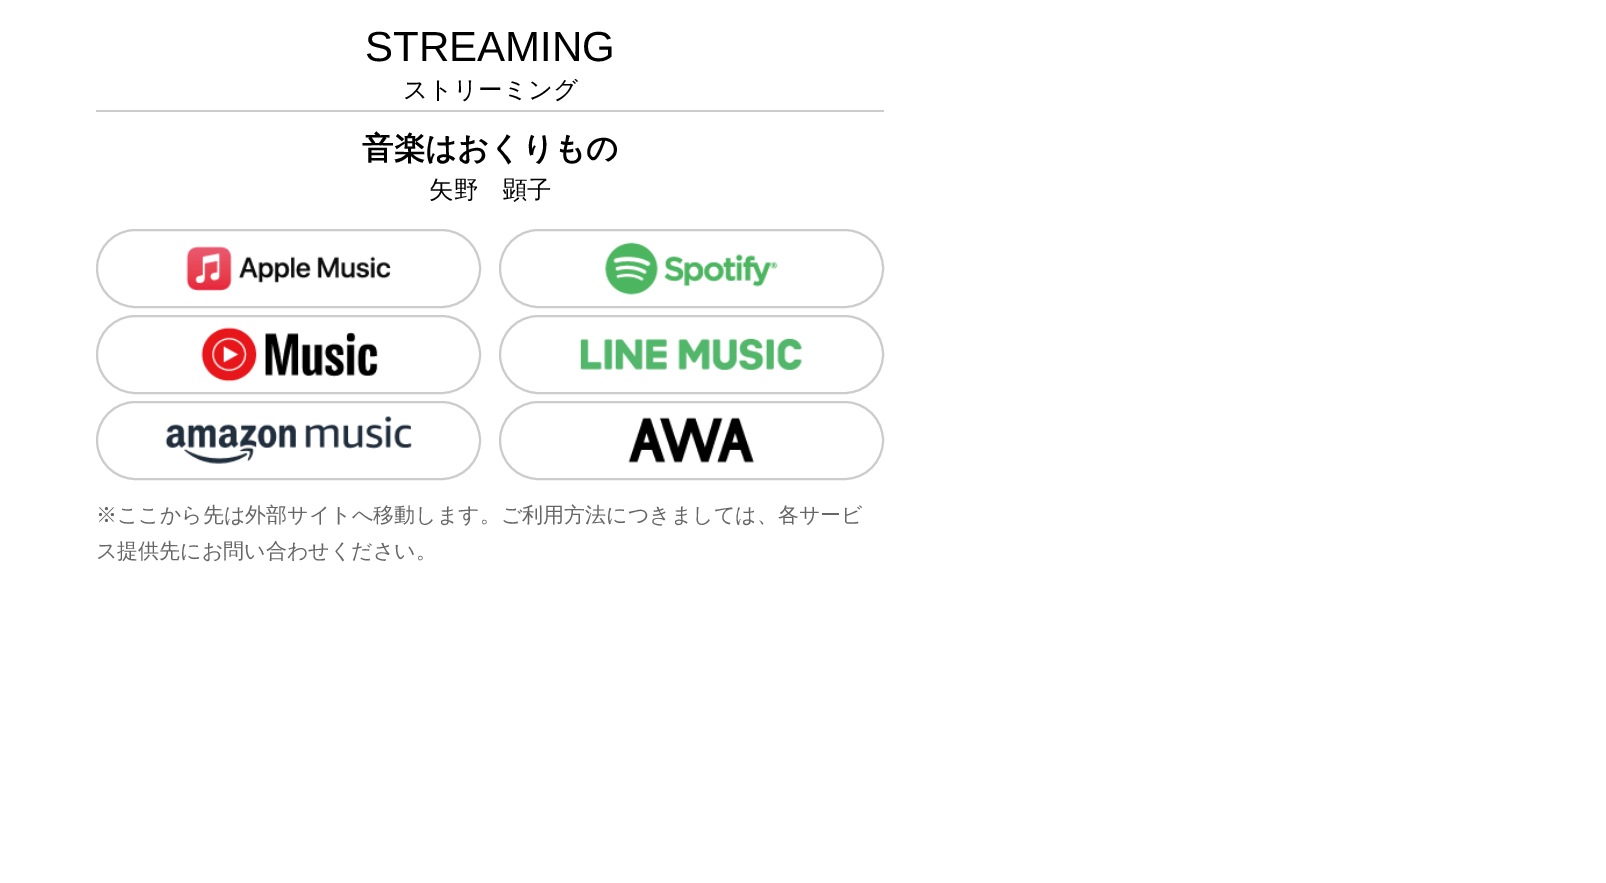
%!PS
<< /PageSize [1606 883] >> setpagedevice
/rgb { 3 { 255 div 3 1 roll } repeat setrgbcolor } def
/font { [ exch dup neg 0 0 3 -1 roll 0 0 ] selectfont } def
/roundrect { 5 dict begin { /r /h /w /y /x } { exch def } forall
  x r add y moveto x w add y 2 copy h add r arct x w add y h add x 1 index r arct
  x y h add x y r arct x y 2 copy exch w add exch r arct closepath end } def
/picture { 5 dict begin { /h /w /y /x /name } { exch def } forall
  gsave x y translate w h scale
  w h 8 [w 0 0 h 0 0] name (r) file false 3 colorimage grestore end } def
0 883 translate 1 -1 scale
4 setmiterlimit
255 255 255 rgb
0 0 1606 883 rectfill
204 204 204 rgb
96 110 788 2 rectfill
2 setlinewidth
97 230 383 77 38.5 roundrect stroke
(img/1.rgb) 186 246 206 45 picture
500 230 383 77 38.5 roundrect stroke
(img/2.rgb) 605 242 173 53 picture
97 316 383 77 38.5 roundrect stroke
(img/3.rgb) 201 327 177 55 picture
500 316 383 77 38.5 roundrect stroke
(img/4.rgb) 580 338 222 32 picture
97 402 383 77 38.5 roundrect stroke
(img/5.rgb) 165 416 247 48 picture
500 402 383 77 38.5 roundrect stroke
(img/6.rgb) 628 417 127 46 picture
/LiberationSans-Regular 42 font
0 0 0 rgb
365 61 moveto (STREAMING) show
/WenQuanYiZenHei-Medium 24.5 font
403 98 moveto (ストリーミング) show
/WenQuanYiZenHei-Bold 31.5 font
362 159 moveto (音楽はおくりもの) show
/WenQuanYiZenHei-Medium 24.5 font
429 198 moveto (矢野　顕子) show
/WenQuanYiZenHei-Medium 21 font
102 102 102 rgb
96 522 moveto (※ここから先は外部サイトへ移動します。ご利用方法につきましては、各サービ) show
96 558 moveto (ス提供先にお問い合わせください。) show
showpage
